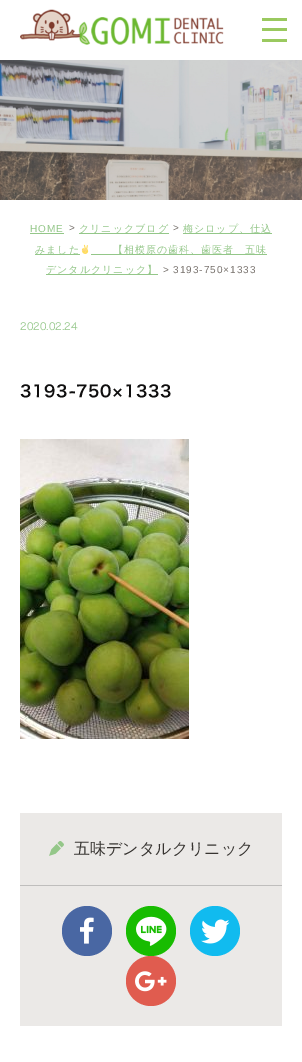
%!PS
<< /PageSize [302 1062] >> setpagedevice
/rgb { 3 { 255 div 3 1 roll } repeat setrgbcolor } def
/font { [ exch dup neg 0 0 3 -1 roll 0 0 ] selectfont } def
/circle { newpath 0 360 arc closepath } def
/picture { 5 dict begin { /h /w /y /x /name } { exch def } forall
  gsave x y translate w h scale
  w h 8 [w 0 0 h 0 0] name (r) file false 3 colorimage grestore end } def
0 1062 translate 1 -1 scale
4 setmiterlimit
255 255 255 rgb
0 0 302 1062 rectfill
(img/1.rgb) 20 9 204 36 picture
[
  [262 18 25 3 154 201 95]
  [262 28 25 3 154 201 95]
  [262 39 25 3 154 201 95]
] { aload pop rgb rectfill } forall
(img/2.rgb) 0 60 302 140 picture
[
  [30 233 34 1 148 199 137]
  [79 233 90 1 148 199 137]
  [183 233 89 1 148 199 137]
  [35 254 45 1 148 199 137]
] { aload pop rgb rectfill } forall
(img/3.rgb) 81 244 8 10 picture
91 254 176 1 rectfill
46 274 112 1 rectfill
(img/4.rgb) 20 439 169 300 picture
235 233 231 rgb
20 813 262 213 rectfill
191 190 189 rgb
20 885 262 1 rectfill
(img/5.rgb) 49 841 15 15 picture
73 103 163 rgb
87 931 25 circle fill
(img/6.rgb) 80 917 14 27 picture
24 188 1 rgb
151 931 25 circle fill
(img/7.rgb) 136 916 31 30 picture
17 187 239 rgb
215 931 25 circle fill
(img/8.rgb) 201 919 29 25 picture
224 92 79 rgb
151 981 25 circle fill
(img/9.rgb) 135 971 32 21 picture
/LiberationSans-Regular 10 font
148 199 137 rgb
30 232 moveto 1 0 (HOME) ashow
119 113 108 rgb
69 231 moveto 1 0 (>) ashow
/WenQuanYiZenHei-Medium 10 font
148 199 137 rgb
79 232 moveto 1 0 (クリニックブログ) ashow
/LiberationSans-Regular 10 font
119 113 108 rgb
173 231 moveto 1 0 (>) ashow
/WenQuanYiZenHei-Medium 10 font
148 199 137 rgb
183 232 moveto 1 0 (梅シロップ、仕込) ashow
35 253 moveto 1 0 (みました) ashow
113 253 moveto 1 0 (【相模原の歯科、歯医者　五味) ashow
46 273 moveto 1 0 (デンタルクリニック】) ashow
/LiberationSans-Regular 10 font
119 113 108 rgb
163 273 moveto 1 0 (>) ashow
173 273 moveto 1 0 (3193-750×1333) ashow
/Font-Light 10 font
148 199 137 rgb
20 330 moveto (2020.02.24) show
/Font-SemiBold 16 font
15 14 14 rgb
20 397 moveto 0.75 0 (3193-750×1333) ashow
/WenQuanYiZenHei-Medium 16 font
55 52 49 rgb
74 854 moveto (五味デンタルクリニック) show
showpage
